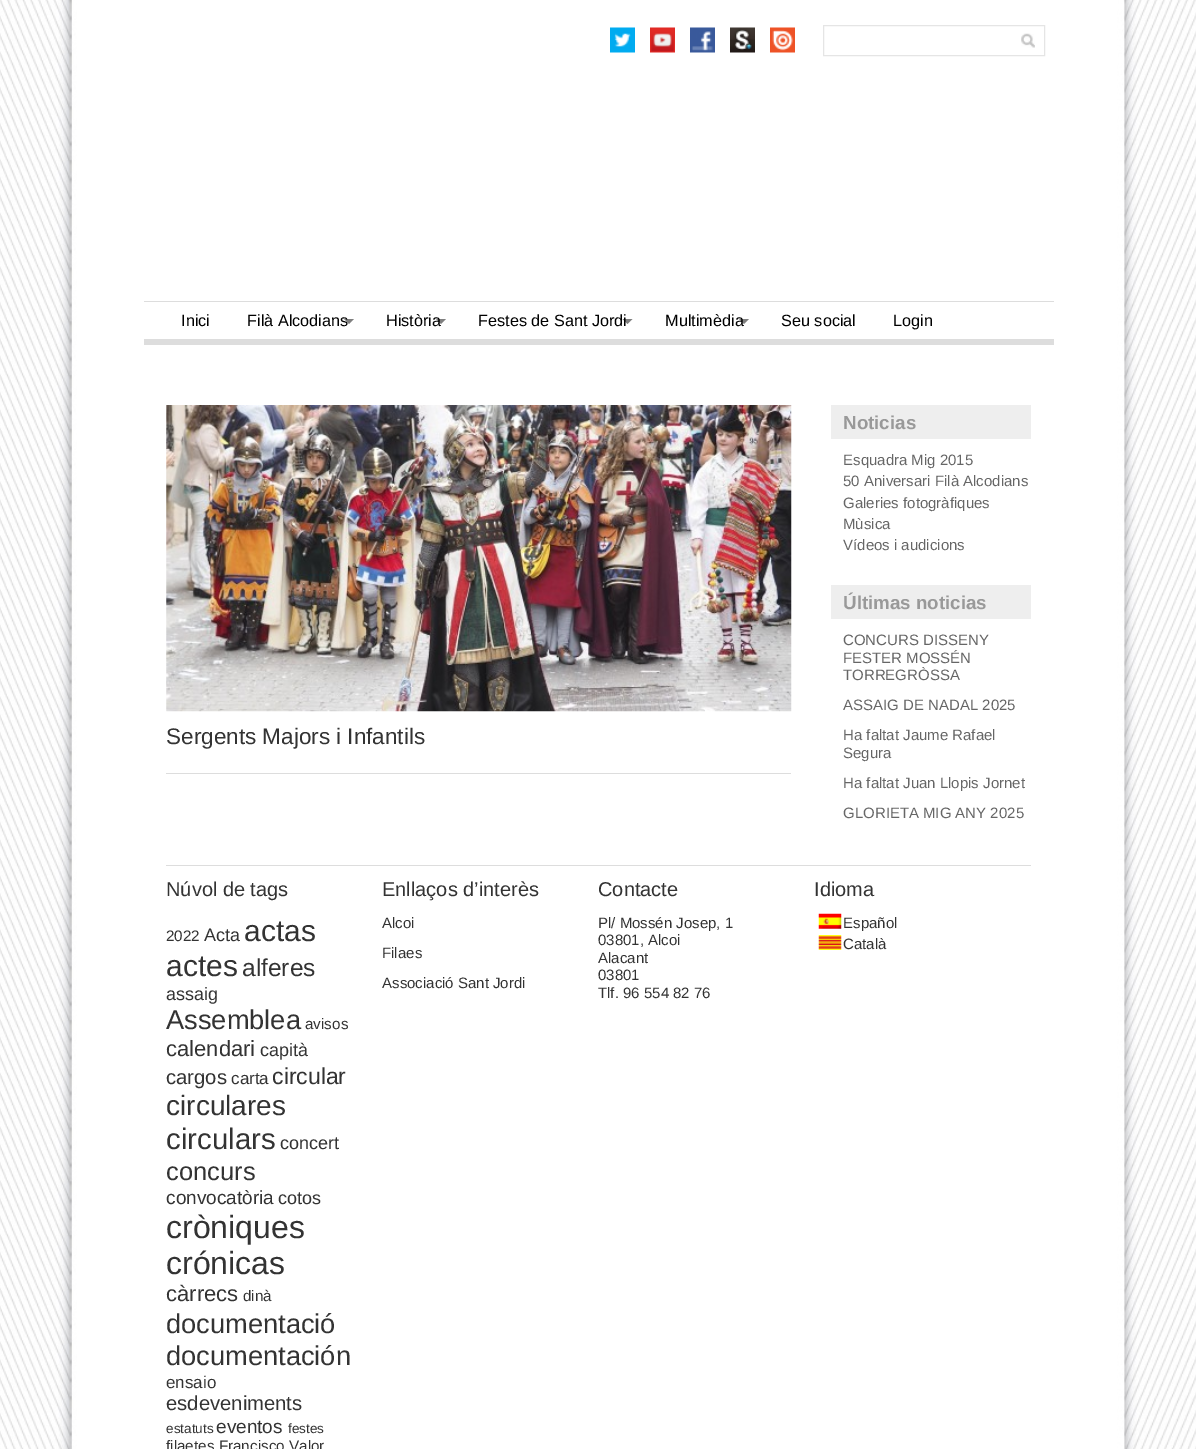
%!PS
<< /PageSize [1196 1449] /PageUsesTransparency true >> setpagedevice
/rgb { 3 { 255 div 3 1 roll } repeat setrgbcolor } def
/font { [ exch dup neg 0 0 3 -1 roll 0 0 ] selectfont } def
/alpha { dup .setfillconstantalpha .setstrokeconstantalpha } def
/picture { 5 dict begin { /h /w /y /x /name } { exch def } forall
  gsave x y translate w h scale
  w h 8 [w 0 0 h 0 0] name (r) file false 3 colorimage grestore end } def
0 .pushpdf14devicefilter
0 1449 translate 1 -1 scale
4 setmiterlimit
255 255 255 rgb
0 0 1196 1449 rectfill
(img/1.rgb) 0 0 1196 1449 picture
(img/2.rgb) 610 27 25 26 picture
(img/3.rgb) 650 27 25 26 picture
(img/4.rgb) 690 27 25 26 picture
(img/5.rgb) 730 27 25 26 picture
(img/6.rgb) 770 27 25 26 picture
229 229 229 rgb
823.5 25.5 221 30 rectstroke
(img/7.rgb) 1021 33 14 15 picture
[
  [144 301 910 1 221 221 221]
  [144 339 910 6 221 221 221]
  [166 773 625 1 221 221 221]
] { aload pop rgb rectfill } forall
(img/8.rgb) 166 405 626 307 picture
[
  [831 405 200 34 238 238 238]
  [831 585 200 34 238 238 238]
  [166 865 865 1 221 221 221]
] { aload pop rgb rectfill } forall
(img/9.rgb) 818 913 24 16 picture
(img/10.rgb) 818 935 24 15 picture
/LiberationSans-Regular 16.25 font
0 0 0 rgb
181 326 moveto (Inici) show
247 326 moveto (Filà Alcodians) show
0.5 alpha
344 319 moveto 354 319 lineto 349 324 lineto closepath fill
1 alpha
386 326 moveto (Història) show
0.5 alpha
436 319 moveto 446 319 lineto 441 324 lineto closepath fill
1 alpha
478 326 moveto (Festes de Sant Jordi) show
0.5 alpha
622.5 319 moveto 632.5 319 lineto 627.5 324 lineto closepath fill
1 alpha
665 326 moveto (Multimèdia) show
0.5 alpha
739 319 moveto 749 319 lineto 744 324 lineto closepath fill
1 alpha
781 326 moveto (Seu social) show
893 326 moveto (Login) show
/LiberationSans-Regular 22.5 font
51 51 51 rgb
166 744 moveto (Sergents Majors i Infantils) show
/LiberationSans-Bold 18.75 font
153 153 153 rgb
843 429 moveto (Noticias) show
/LiberationSans-Regular 15 font
102 102 102 rgb
[
  [(Esquadra Mig 2015) 843 465]
  [(50 Aniversari Filà Alcodians) 843 486]
  [(Galeries fotogràfiques) 843 508]
  [(Mùsica) 843 529]
  [(Vídeos i audicions) 843 550]
] { aload pop moveto show } forall
/LiberationSans-Bold 18.75 font
153 153 153 rgb
843 609 moveto (Últimas noticias) show
/LiberationSans-Regular 15 font
102 102 102 rgb
[
  [(CONCURS DISSENY) 843 645]
  [(FESTER MOSSÉN) 843 663]
  [(TORREGRÒSSA) 843 680]
  [(ASSAIG DE NADAL 2025) 843 710]
  [(Ha faltat Jaume Rafael) 843 740]
  [(Segura) 843 758]
  [(Ha faltat Juan Llopis Jornet) 843 788]
  [(GLORIETA MIG ANY 2025) 843 818]
] { aload pop moveto show } forall
/LiberationSans-Regular 20 font
51 51 51 rgb
166 896 moveto (Núvol de tags) show
/LiberationSans-Regular 15.25 font
166 941 moveto (2022) show
/LiberationSans-Regular 18 font
204 941 moveto (Acta) show
/LiberationSans-Regular 30 font
244 941 moveto (actas) show
166 976 moveto (actes) show
/LiberationSans-Regular 24.5 font
242 976 moveto (alferes) show
/LiberationSans-Regular 18 font
166 1000 moveto (assaig) show
/LiberationSans-Regular 27.25 font
166 1029 moveto (Assemblea) show
/LiberationSans-Regular 15.25 font
305 1029 moveto (avisos) show
/LiberationSans-Regular 22 font
166 1056 moveto (calendari) show
/LiberationSans-Regular 18 font
260 1056 moveto (capità) show
/LiberationSans-Regular 20.25 font
166 1084 moveto (cargos) show
/LiberationSans-Regular 17 font
231 1084 moveto (carta) show
/LiberationSans-Regular 23 font
272 1084 moveto (circular) show
/LiberationSans-Regular 28 font
166 1115 moveto (circulares) show
/LiberationSans-Regular 29.5 font
166 1149 moveto (circulars) show
/LiberationSans-Regular 18 font
280 1149 moveto (concert) show
/LiberationSans-Regular 25.5 font
166 1180 moveto (concurs) show
/LiberationSans-Regular 19 font
166 1204 moveto (convocatòria) show
/LiberationSans-Regular 18 font
278 1204 moveto (cotos) show
/LiberationSans-Regular 32 font
166 1238 moveto (cròniques) show
166 1274 moveto (crónicas) show
/LiberationSans-Regular 22 font
166 1301 moveto (càrrecs) show
/LiberationSans-Regular 15.25 font
243 1301 moveto (dinà) show
/LiberationSans-Regular 27.25 font
166 1333 moveto (documentació) show
166 1365 moveto (documentación) show
/LiberationSans-Regular 17 font
166 1388 moveto (ensaio) show
/LiberationSans-Regular 20.25 font
166 1410 moveto (esdeveniments) show
/LiberationSans-Regular 13.5 font
166 1433 moveto (estatuts) show
/LiberationSans-Regular 19 font
216 1433 moveto (eventos) show
/LiberationSans-Regular 13.5 font
288 1433 moveto (festes) show
/LiberationSans-Regular 15.25 font
166 1451 moveto (filaetes Francisco Valor) show
/LiberationSans-Regular 20 font
382 896 moveto (Enllaços d’interès) show
/LiberationSans-Regular 15 font
[
  [(Alcoi) 382 928]
  [(Filaes) 382 958]
  [(Associació Sant Jordi) 382 988]
] { aload pop moveto show } forall
/LiberationSans-Regular 20 font
598 896 moveto (Contacte) show
/LiberationSans-Regular 15 font
[
  [(Pl/ Mossén Josep, 1) 598 928]
  [(03801, Alcoi) 598 945]
  [(Alacant) 598 963]
  [(03801) 598 980]
  [(Tlf. 96 554 82 76) 598 998]
] { aload pop moveto show } forall
/LiberationSans-Regular 20 font
814 896 moveto (Idioma) show
/LiberationSans-Regular 15 font
843 928 moveto (Español) show
843 949 moveto (Català) show
.poppdf14devicefilter showpage
